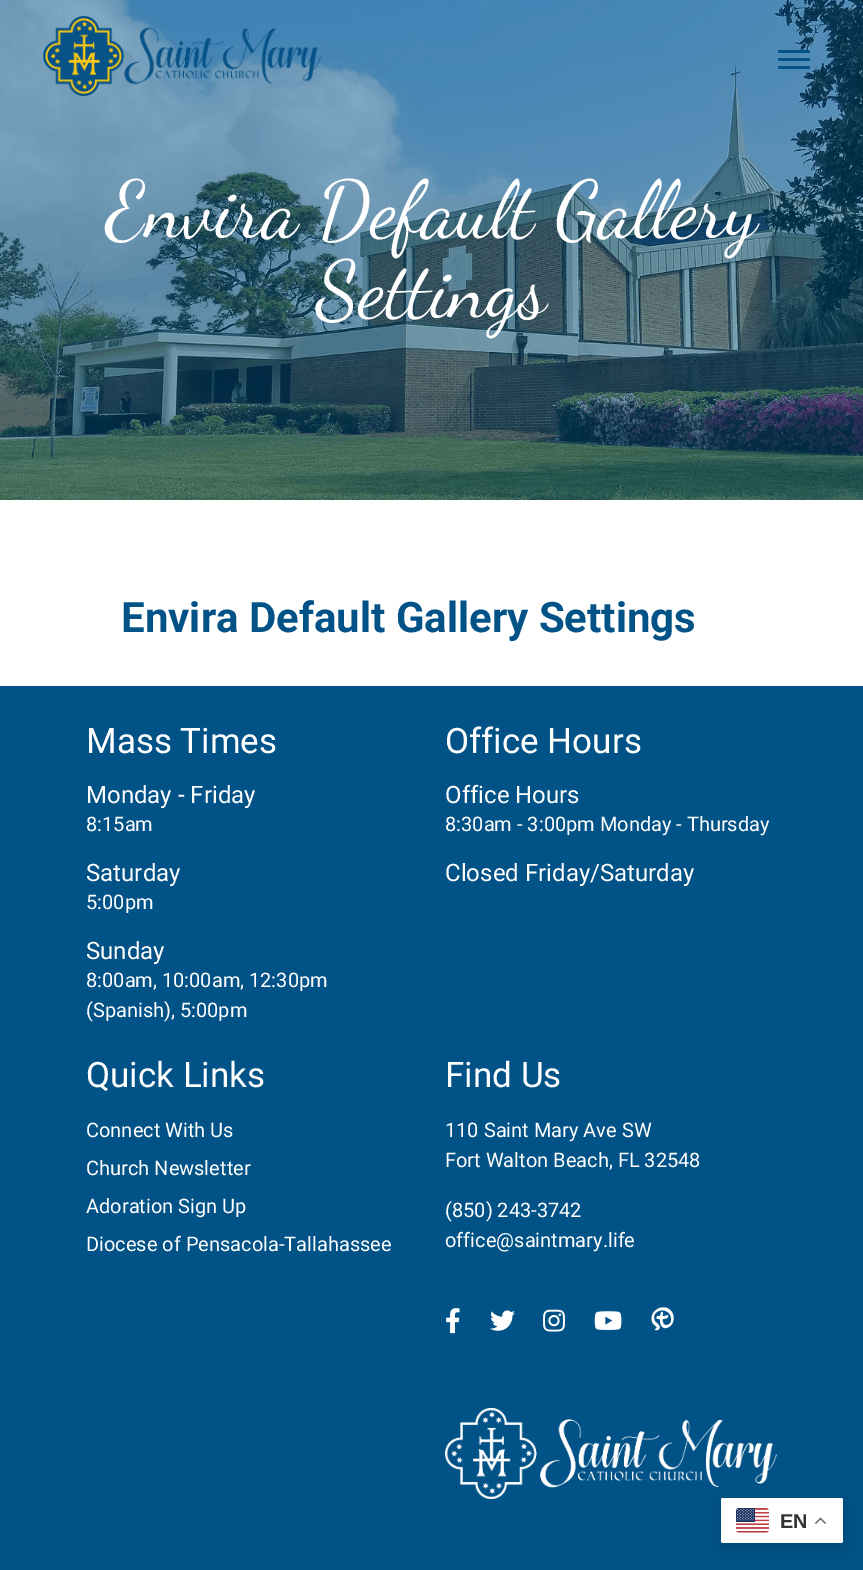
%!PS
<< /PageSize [863 1570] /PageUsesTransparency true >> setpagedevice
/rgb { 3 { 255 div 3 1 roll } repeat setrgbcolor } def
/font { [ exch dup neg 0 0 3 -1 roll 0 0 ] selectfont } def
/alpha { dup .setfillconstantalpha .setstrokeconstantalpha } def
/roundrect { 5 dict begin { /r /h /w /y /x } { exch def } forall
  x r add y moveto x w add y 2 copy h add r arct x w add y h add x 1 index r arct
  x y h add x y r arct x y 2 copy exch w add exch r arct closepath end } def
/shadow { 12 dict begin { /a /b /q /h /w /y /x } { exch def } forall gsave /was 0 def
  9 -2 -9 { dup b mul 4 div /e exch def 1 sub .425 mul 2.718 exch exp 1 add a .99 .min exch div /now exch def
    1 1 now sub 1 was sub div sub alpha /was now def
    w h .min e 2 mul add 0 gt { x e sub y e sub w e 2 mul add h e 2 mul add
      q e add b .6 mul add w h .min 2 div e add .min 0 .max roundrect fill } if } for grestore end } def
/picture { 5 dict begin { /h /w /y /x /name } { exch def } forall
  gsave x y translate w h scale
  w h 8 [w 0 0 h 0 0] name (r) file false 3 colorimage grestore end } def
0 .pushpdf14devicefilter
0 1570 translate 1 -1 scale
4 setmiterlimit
255 255 255 rgb
0 0 863 1570 rectfill
(img/2.rgb) 0 0 863 500 picture
(img/1.rgb) 43 16 278 80 picture
1 82 135 rgb
778 50 32 3 1.5 roundrect fill
778 58 32 3 1.5 roundrect fill
778 66 32 3 1.5 roundrect fill
0 686 863 884 rectfill
(img/3.rgb) 446 1308 14 26 picture
(img/4.rgb) 490 1310 25 21 picture
(img/5.rgb) 543 1309 22 23 picture
(img/6.rgb) 594 1311 28 19 picture
(img/7.rgb) 651 1307 23 24 picture
(img/8.rgb) 445 1408 332 91 picture
0 0 0 rgb
721 1503 122 45 2 7.5 0.15 shadow
255 255 255 rgb
721 1498 122 45 2 roundrect fill
(img/9.rgb) 736 1508 33 25 picture
(img/10.rgb) 815 1517 11 7 picture
/DancingScript-Regular 80 font
106 236 moveto (Envira Default Gallery) show
316 316 moveto (Settings) show
/Roboto-Bold 42 font
1 82 135 rgb
121 632 moveto (Envira Default Gallery Settings) show
/Roboto-Regular 35 font
255 255 255 rgb
86 753 moveto (Mass Times) show
/Roboto-Regular 24 font
86 803 moveto (Monday - Friday) show
/Roboto-Regular 20 font
86 831 moveto (8:15am) show
/Roboto-Regular 24 font
86 881 moveto (Saturday) show
/Roboto-Regular 20 font
86 909 moveto (5:00pm) show
/Roboto-Regular 24 font
86 959 moveto (Sunday) show
/Roboto-Regular 20 font
86 987 moveto (8:00am, 10:00am, 12:30pm) show
86 1017 moveto (\(Spanish\), 5:00pm) show
/Roboto-Regular 35 font
445 753 moveto (Office Hours) show
/Roboto-Regular 24 font
445 803 moveto (Office Hours) show
/Roboto-Regular 20 font
445 831 moveto (8:30am - 3:00pm Monday - Thursday) show
/Roboto-Regular 24 font
445 881 moveto (Closed Friday/Saturday) show
/Roboto-Regular 35 font
86 1087 moveto (Quick Links) show
/Roboto-Regular 20 font
[
  [(Connect With Us) 86 1137]
  [(Church Newsletter) 86 1175]
  [(Adoration Sign Up) 86 1213]
  [(Diocese of Pensacola-Tallahassee) 86 1251]
] { aload pop moveto show } forall
/Roboto-Regular 35 font
445 1087 moveto (Find Us) show
/Roboto-Regular 20 font
[
  [(110 Saint Mary Ave SW) 445 1137]
  [(Fort Walton Beach, FL 32548) 445 1167]
  [(\(850\) 243-3742) 445 1217]
  [(office@saintmary.life) 445 1247]
] { aload pop moveto show } forall
/LiberationSans-Bold 20 font
51 51 51 rgb
780 1528 moveto (EN) show
.poppdf14devicefilter showpage
